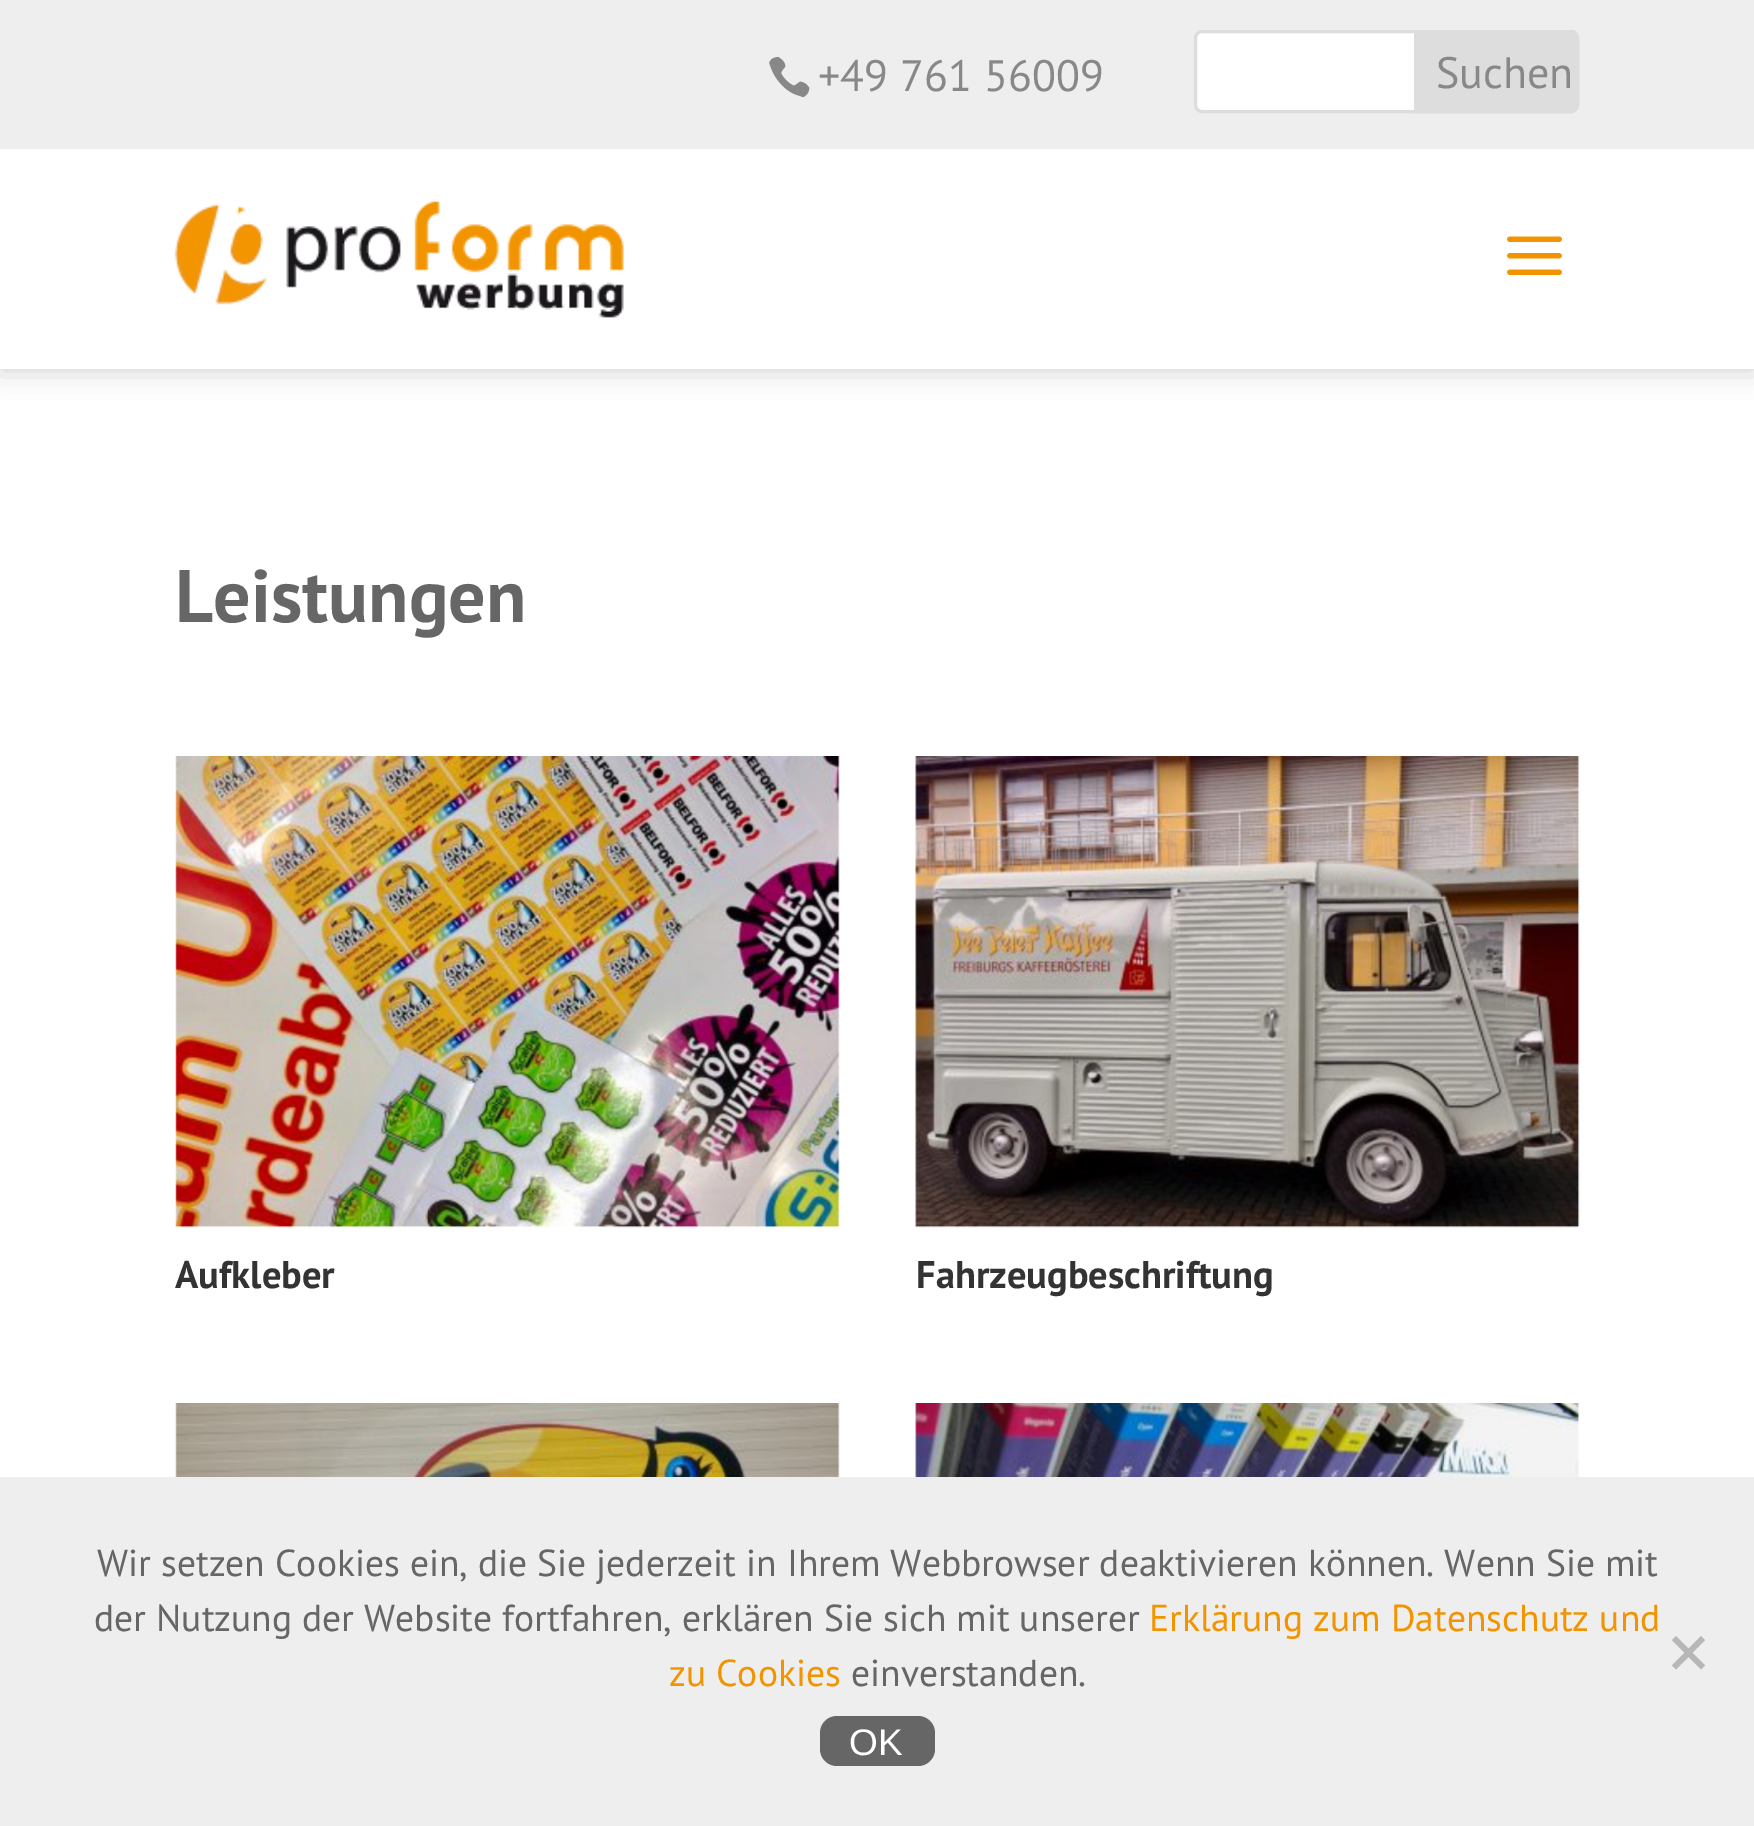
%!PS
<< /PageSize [1754 1826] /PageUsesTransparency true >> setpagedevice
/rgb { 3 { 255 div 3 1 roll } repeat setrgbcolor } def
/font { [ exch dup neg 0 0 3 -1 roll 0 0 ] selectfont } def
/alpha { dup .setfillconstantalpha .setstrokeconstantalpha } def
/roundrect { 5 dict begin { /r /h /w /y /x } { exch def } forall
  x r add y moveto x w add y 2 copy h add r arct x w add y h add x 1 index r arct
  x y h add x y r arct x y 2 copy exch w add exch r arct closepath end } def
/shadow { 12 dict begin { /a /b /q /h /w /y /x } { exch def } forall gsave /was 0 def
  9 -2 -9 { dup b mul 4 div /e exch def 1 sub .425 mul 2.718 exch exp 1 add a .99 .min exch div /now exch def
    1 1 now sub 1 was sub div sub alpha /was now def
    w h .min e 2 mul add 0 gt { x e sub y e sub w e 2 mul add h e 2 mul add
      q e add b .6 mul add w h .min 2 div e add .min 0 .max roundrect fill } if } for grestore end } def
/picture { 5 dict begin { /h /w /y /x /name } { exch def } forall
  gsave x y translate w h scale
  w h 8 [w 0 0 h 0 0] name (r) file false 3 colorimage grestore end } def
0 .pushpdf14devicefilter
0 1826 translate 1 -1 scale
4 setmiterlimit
255 255 255 rgb
0 0 1754 1826 rectfill
0 0 0 rgb
0 149 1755 220 0 14 0.2 shadow
238 238 238 rgb
0 0 1754 149 rectfill
(img/1.rgb) 769 56 41 42 picture
255 255 255 rgb
1195.5 31.5 382 80 6.5 roundrect gsave fill grestore
221 221 221 rgb
3 setlinewidth
stroke
1415.5 31.5 moveto 1571 31.5 lineto 1574.5 31.5 1577.5 34.5 1577.5 38 curveto 1577.5 105 lineto 1577.5 108.5 1574.5 111.5 1571 111.5 curveto 1415.5 111.5 lineto closepath gsave fill grestore
stroke
255 255 255 rgb
0 149 1754 220 rectfill
(img/2.rgb) 174 201 450 117 picture
(img/3.rgb) 1507 236 55 39 picture
(img/4.rgb) 175 756 665 472 picture
(img/5.rgb) 915 756 665 472 picture
(img/6.rgb) 175 1403 665 74 picture
(img/7.rgb) 915 1403 665 74 picture
238 238 238 rgb
0 1477 1754 349 rectfill
183 183 183 rgb
1701 1636 moveto 1705 1640 lineto 1676 1669.5 lineto 1672 1665.5 lineto closepath fill
1672 1640 moveto 1676 1636 lineto 1705 1665.5 lineto 1701 1669.5 lineto closepath fill
102 102 102 rgb
820 1716 115 50 17 roundrect fill
/PTSans-Regular 44 font
136 136 136 rgb
818 91 moveto (+49 761 56009) show
1436 88 moveto (Suchen) show
/PTSans-Bold 74.25 font
102 102 102 rgb
175 622 moveto (Leistungen) show
/PTSans-Bold 38.5 font
51 51 51 rgb
175 1288 moveto (Aufkleber) show
916 1288 moveto (Fahrzeugbeschriftung) show
/PTSans-Regular 37.55 font
102 102 102 rgb
97 1576 moveto (Wir setzen Cookies ein, die Sie jederzeit in Ihrem Webbrowser deaktivieren können. Wenn Sie mit) show
94 1631 moveto (der Nutzung der Website fortfahren, erklären Sie sich mit unserer) show
242 148 0 rgb
1149 1631 moveto (Erklärung zum Datenschutz und) show
669 1686 moveto (zu Cookies) show
102 102 102 rgb
851 1686 moveto (einverstanden.) show
/LiberationSans-Regular 37 font
255 255 255 rgb
849 1755 moveto (OK) show
.poppdf14devicefilter showpage
